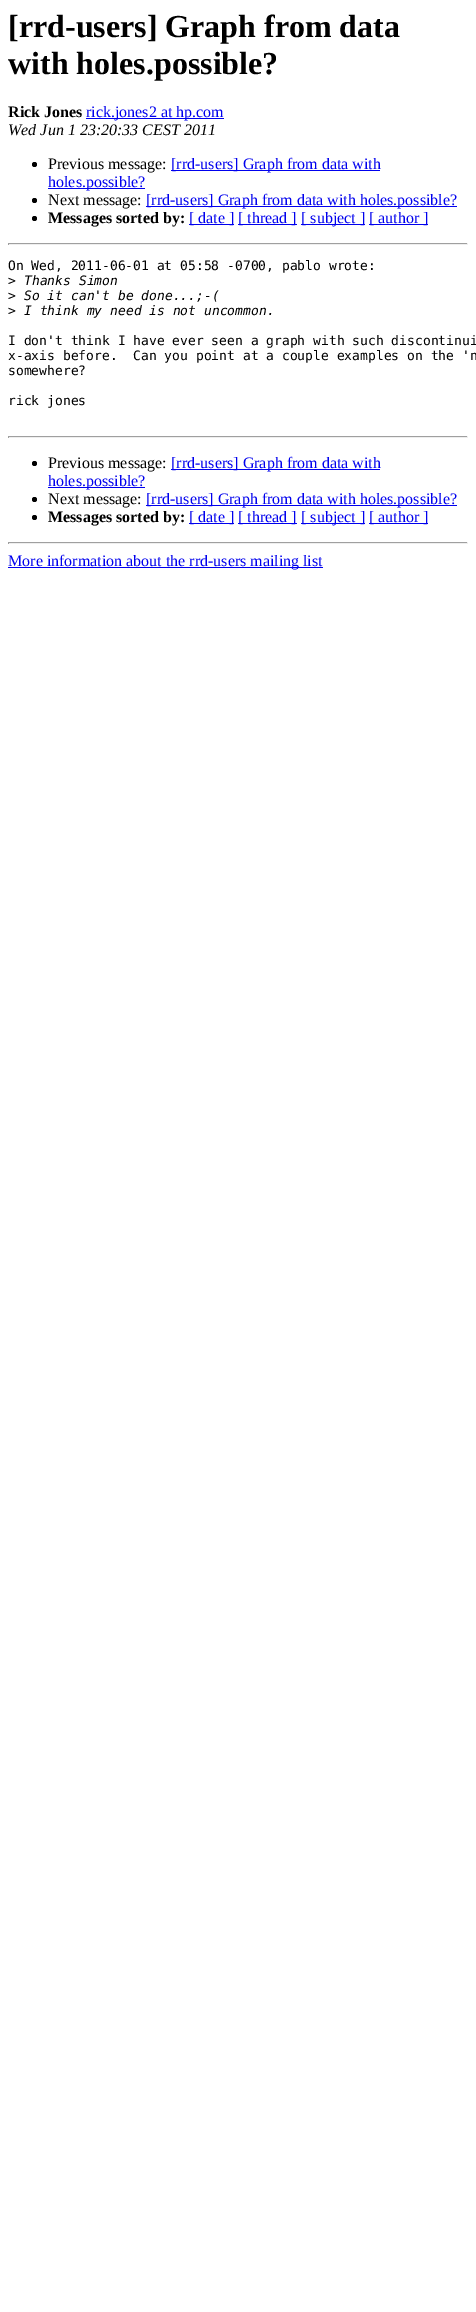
%!PS
<< /PageSize [476 2312] >> setpagedevice
/rgb { 3 { 255 div 3 1 roll } repeat setrgbcolor } def
/font { [ exch dup neg 0 0 3 -1 roll 0 0 ] selectfont } def
/circle { newpath 0 360 arc closepath } def
0 2312 translate 1 -1 scale
4 setmiterlimit
255 255 255 rgb
0 0 476 2312 rectfill
0 0 238 rgb
86 118 138 1 rectfill
0 0 0 rgb
34.5 164.5 2.5 circle fill
0 0 238 rgb
171 170 209 1 rectfill
48 188 97 1 rectfill
0 0 0 rgb
34.5 200.5 2.5 circle fill
0 0 238 rgb
146 206 311 1 rectfill
0 0 0 rgb
34.5 218.5 2.5 circle fill
[
  [189 224 45 1 0 0 238]
  [238 224 59 1 0 0 238]
  [301 224 64 1 0 0 238]
  [369 224 59 1 0 0 238]
  [8 243 460 1 159 159 159]
  [467 243 1 2 238 238 238]
  [8 244 460 1 238 238 238]
  [8 243 1 2 159 159 159]
  [8 436 460 1 159 159 159]
  [467 436 1 2 238 238 238]
  [8 437 460 1 238 238 238]
  [8 436 1 2 159 159 159]
] { aload pop rgb rectfill } forall
0 0 0 rgb
34.5 463.5 2.5 circle fill
0 0 238 rgb
171 469 209 1 rectfill
48 487 97 1 rectfill
0 0 0 rgb
34.5 499.5 2.5 circle fill
0 0 238 rgb
146 505 311 1 rectfill
0 0 0 rgb
34.5 517.5 2.5 circle fill
[
  [189 523 45 1 0 0 238]
  [238 523 59 1 0 0 238]
  [301 523 64 1 0 0 238]
  [369 523 59 1 0 0 238]
  [8 542 460 1 159 159 159]
  [467 542 1 2 238 238 238]
  [8 543 460 1 238 238 238]
  [8 542 1 2 159 159 159]
  [8 567 315 1 0 0 238]
] { aload pop rgb rectfill } forall
/LiberationSerif-Bold 32 font
0 0 0 rgb
8 37 moveto ([rrd-users] Graph from data) show
8 74 moveto (with holes.possible?) show
/LiberationSerif-Bold 16 font
8 117 moveto (Rick Jones) show
/LiberationSerif-Regular 16 font
0 0 238 rgb
86 117 moveto (rick.jones2 at hp.com) show
/LiberationSerif-Italic 16 font
0 0 0 rgb
8 135 moveto (Wed Jun 1 23:20:33 CEST 2011) show
/LiberationSerif-Regular 16 font
48 169 moveto (Previous message:) show
0 0 238 rgb
171 169 moveto ([rrd-users] Graph from data with) show
48 187 moveto (holes.possible?) show
0 0 0 rgb
48 205 moveto (Next message:) show
0 0 238 rgb
146 205 moveto ([rrd-users] Graph from data with holes.possible?) show
/LiberationSerif-Bold 16 font
0 0 0 rgb
48 223 moveto (Messages sorted by:) show
/LiberationSerif-Regular 16 font
0 0 238 rgb
[
  [([ date ]) 189 223]
  [([ thread ]) 238 223]
  [([ subject ]) 301 223]
  [([ author ]) 369 223]
] { aload pop moveto show } forall
/DejaVuSansMono-Regular 13 font
0 0 0 rgb
8 270 moveto (On Wed, 2011-06-01 at 05:58 -0700, pablo wrote:) show
8 285 moveto (>) show
/DejaVuSansMono-Italic 13 font
24 285 moveto (Thanks Simon) show
/DejaVuSansMono-Regular 13 font
8 300 moveto (>) show
/DejaVuSansMono-Italic 13 font
24 300 moveto (So it can't be done...;-\() show
/DejaVuSansMono-Regular 13 font
8 315 moveto (>) show
/DejaVuSansMono-Italic 13 font
24 315 moveto (I think my need is not uncommon.) show
/DejaVuSansMono-Regular 13 font
[
  [(I don't think I have ever seen a graph with such discontinui) 8 345]
  [(x-axis before.  Can you point at a couple examples on the 'n) 8 360]
  [(somewhere?) 8 375]
  [(rick jones) 8 405]
] { aload pop moveto show } forall
/LiberationSerif-Regular 16 font
48 468 moveto (Previous message:) show
0 0 238 rgb
171 468 moveto ([rrd-users] Graph from data with) show
48 486 moveto (holes.possible?) show
0 0 0 rgb
48 504 moveto (Next message:) show
0 0 238 rgb
146 504 moveto ([rrd-users] Graph from data with holes.possible?) show
/LiberationSerif-Bold 16 font
0 0 0 rgb
48 522 moveto (Messages sorted by:) show
/LiberationSerif-Regular 16 font
0 0 238 rgb
[
  [([ date ]) 189 522]
  [([ thread ]) 238 522]
  [([ subject ]) 301 522]
  [([ author ]) 369 522]
  [(More information about the rrd-users mailing list) 8 566]
] { aload pop moveto show } forall
showpage
